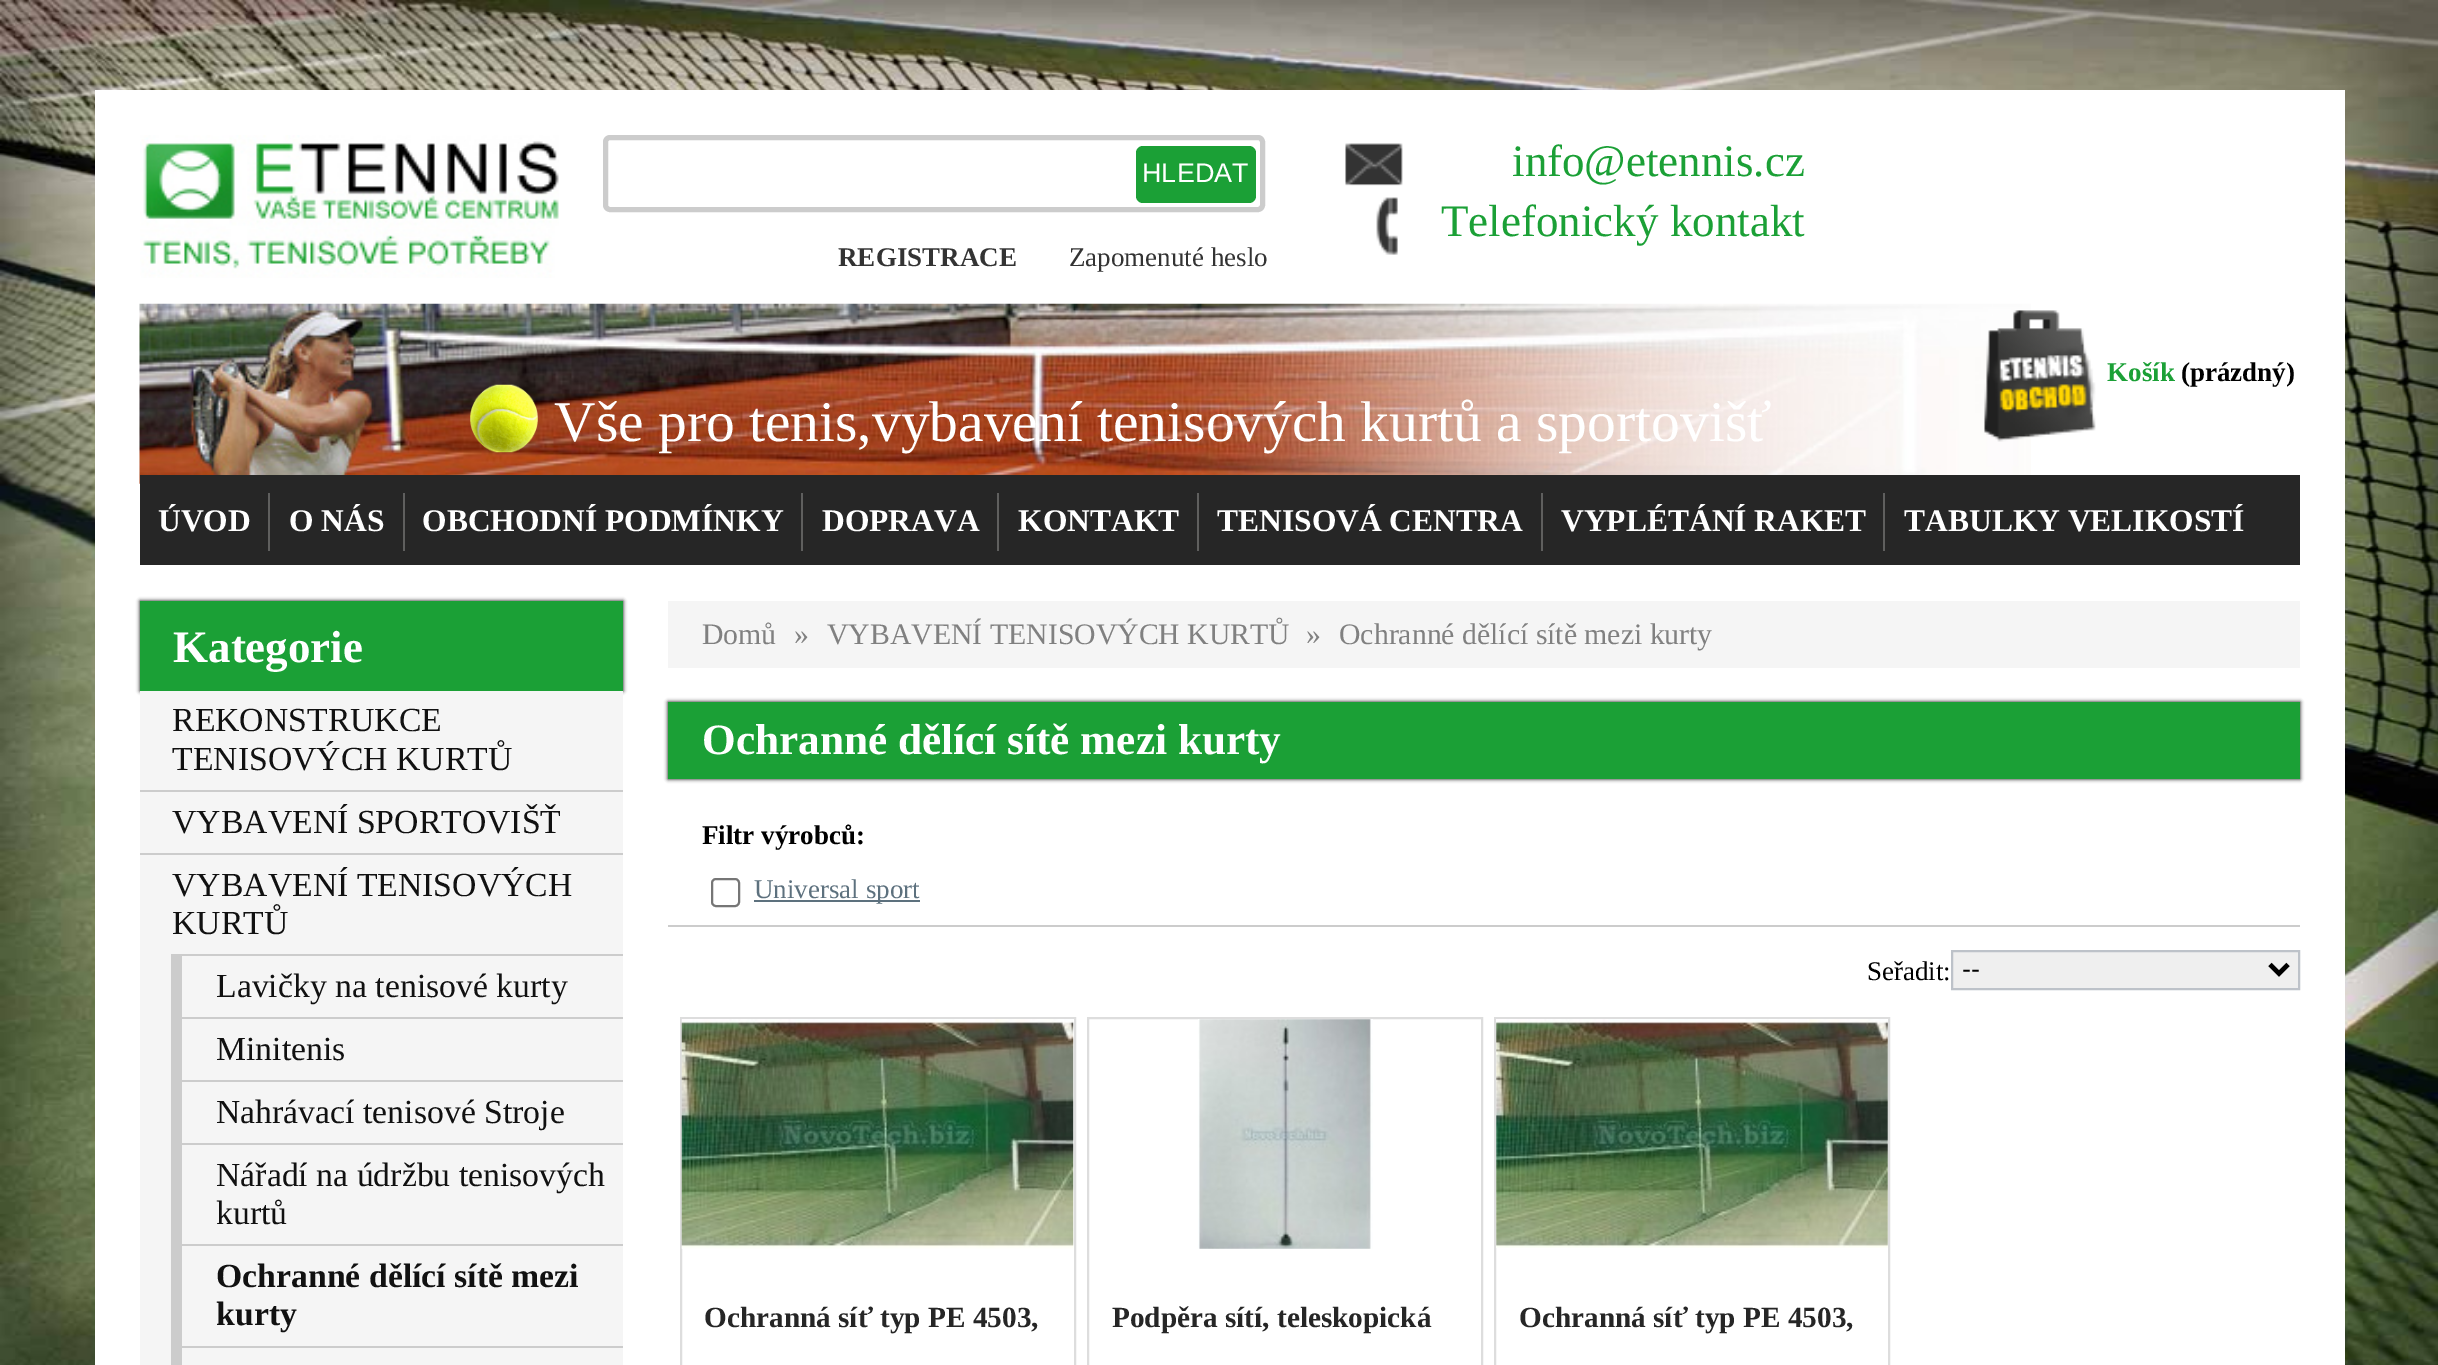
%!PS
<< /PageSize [2438 1365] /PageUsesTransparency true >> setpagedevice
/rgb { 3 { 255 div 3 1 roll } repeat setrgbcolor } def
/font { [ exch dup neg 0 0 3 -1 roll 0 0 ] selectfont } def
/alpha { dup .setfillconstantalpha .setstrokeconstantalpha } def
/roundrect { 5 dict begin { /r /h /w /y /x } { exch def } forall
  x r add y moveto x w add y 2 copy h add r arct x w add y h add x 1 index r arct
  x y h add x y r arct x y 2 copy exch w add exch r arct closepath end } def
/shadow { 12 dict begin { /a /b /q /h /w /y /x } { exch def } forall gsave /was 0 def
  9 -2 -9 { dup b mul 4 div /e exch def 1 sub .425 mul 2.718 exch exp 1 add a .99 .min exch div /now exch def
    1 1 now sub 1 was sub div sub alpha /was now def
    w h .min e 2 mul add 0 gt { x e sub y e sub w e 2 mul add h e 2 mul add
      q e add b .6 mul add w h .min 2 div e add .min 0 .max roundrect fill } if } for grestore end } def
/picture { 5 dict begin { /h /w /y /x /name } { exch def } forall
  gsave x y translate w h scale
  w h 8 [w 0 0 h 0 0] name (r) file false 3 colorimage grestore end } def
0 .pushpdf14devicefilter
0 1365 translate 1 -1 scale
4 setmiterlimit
255 255 255 rgb
0 0 2438 1365 rectfill
(img/1.rgb) 0 0 2438 1365 picture
95 90 2250 1275 rectfill
(img/2.rgb) 139 303 1892 181 picture
(img/3.rgb) 140 135 419 143 picture
(img/4.rgb) 1345 143 58 43 picture
(img/5.rgb) 1376 197 22 58 picture
(img/6.rgb) 1984 310 112 132 picture
204 204 204 rgb
5 setlinewidth
605.5 137.5 657 72 4.5 roundrect stroke
27 160 54 rgb
1136 146 120 57 7 roundrect fill
(img/7.rgb) 470 384 68 69 picture
[
  [140 475 2160 90 38 38 38]
  [268 493 2 58 95 95 94]
  [403 493 2 58 95 95 94]
  [801 493 2 58 95 95 94]
  [997 493 2 58 95 95 94]
  [1197 493 2 58 95 95 94]
  [1541 493 2 58 95 95 94]
  [1883 493 2 58 95 95 94]
] { aload pop rgb rectfill } forall
0 0 0 rgb
140 601 483 90 0 2 1 shadow
[
  [140 601 483 90 27 160 54]
  [140 691 483 674 245 245 245]
  [140 790 483 2 204 204 204]
  [140 853 483 2 204 204 204]
  [171 954 11 411 204 204 204]
  [182 954 441 2 204 204 204]
  [182 1017 441 2 204 204 204]
  [182 1080 441 2 204 204 204]
  [182 1143 441 2 204 204 204]
  [182 1244 441 2 204 204 204]
  [182 1346 441 2 204 204 204]
  [668 601 1632 67 245 245 245]
] { aload pop rgb rectfill } forall
0 0 0 rgb
668 702 1632 77 0 2 1 shadow
27 160 54 rgb
668 702 1632 77 rectfill
204 204 204 rgb
668 925 1632 2 rectfill
118 118 118 rgb
2 setlinewidth
712 879 27 27 4 roundrect stroke
93 113 126 rgb
754 900 166 2 rectfill
239 239 239 rgb
1952 951 moveto 2299 951 lineto 2299 989 lineto 1952 989 lineto closepath gsave fill grestore
189 194 201 rgb
stroke
0 0 0 rgb
4.5 setlinewidth
2270 964.5 moveto 2279 973.5 lineto 2288 964.5 lineto stroke
221 221 221 rgb
2 setlinewidth
681 1018 394 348 rectstroke
(img/8.rgb) 681 1019 393 230 picture
1088 1018 394 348 rectstroke
(img/9.rgb) 1198 1019 175 230 picture
1495 1018 394 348 rectstroke
(img/10.rgb) 1496 1019 392 229 picture
/LiberationSerif-Regular 45 font
27 160 54 rgb
1512 176 moveto (info@etennis.cz) show
1441 236 moveto (Telefonický kontakt) show
/LiberationSerif-Bold 27 font
51 51 51 rgb
838 266 moveto (REGISTRACE) show
/LiberationSerif-Regular 27 font
1069 266 moveto (Zapomenuté heslo) show
/LiberationSerif-Bold 27 font
27 160 54 rgb
2107 381 moveto (Košík) show
0 0 0 rgb
2181 381 moveto (\(prázdný\)) show
/LiberationSans-Regular 27 font
255 255 255 rgb
1142 182 moveto (HLEDAT) show
/LiberationSerif-Regular 57.5 font
554 441 moveto (Vše pro tenis,vybavení tenisových kurtů a sportovišť) show
/LiberationSerif-Bold 31.5 font
[
  [(ÚVOD) 158 531]
  [(O NÁS) 289 531]
  [(OBCHODNÍ PODMÍNKY) 422 531]
  [(DOPRAVA) 822 531]
  [(KONTAKT) 1018 531]
  [(TENISOVÁ CENTRA) 1217 531]
  [(VYPLÉTÁNÍ RAKET) 1561 531]
  [(TABULKY VELIKOSTÍ) 1904 531]
] { aload pop moveto show } forall
/LiberationSerif-Bold 45 font
173 662 moveto (Kategorie) show
/LiberationSerif-Regular 33.75 font
17 17 17 rgb
[
  [(REKONSTRUKCE) 172 731]
  [(TENISOVÝCH KURTŮ) 172 770]
  [(VYBAVENÍ SPORTOVIŠŤ) 172 833]
  [(VYBAVENÍ TENISOVÝCH) 172 896]
  [(KURTŮ) 172 934]
  [(Lavičky na tenisové kurty) 216 997]
  [(Minitenis) 216 1060]
  [(Nahrávací tenisové Stroje) 216 1123]
  [(Nářadí na údržbu tenisových) 216 1186]
  [(kurtů) 216 1224]
] { aload pop moveto show } forall
/LiberationSerif-Bold 33.75 font
216 1287 moveto (Ochranné dělící sítě mezi) show
216 1325 moveto (kurty) show
/LiberationSerif-Regular 29.75 font
128 128 128 rgb
[
  [(Domů) 702 644]
  [(») 794 644]
  [(VYBAVENÍ TENISOVÝCH KURTŮ) 827 644]
  [(») 1306 644]
  [(Ochranné dělící sítě mezi kurty) 1339 644]
] { aload pop moveto show } forall
/LiberationSerif-Bold 43.25 font
255 255 255 rgb
702 754 moveto (Ochranné dělící sítě mezi kurty) show
/LiberationSerif-Bold 27 font
0 0 0 rgb
702 844 moveto (Filtr výrobců:) show
/LiberationSerif-Regular 27 font
93 113 126 rgb
754 898 moveto (Universal sport) show
0 0 0 rgb
1867 980 moveto (Seřadit:) show
/LiberationSans-Regular 27 font
1962 978 moveto (--) show
/LiberationSerif-Bold 29.25 font
38 38 38 rgb
[
  [(Ochranná síť typ PE 4503,) 704 1327]
  [(Podpěra sítí, teleskopická) 1112 1327]
  [(Ochranná síť typ PE 4503,) 1519 1327]
] { aload pop moveto show } forall
.poppdf14devicefilter showpage
